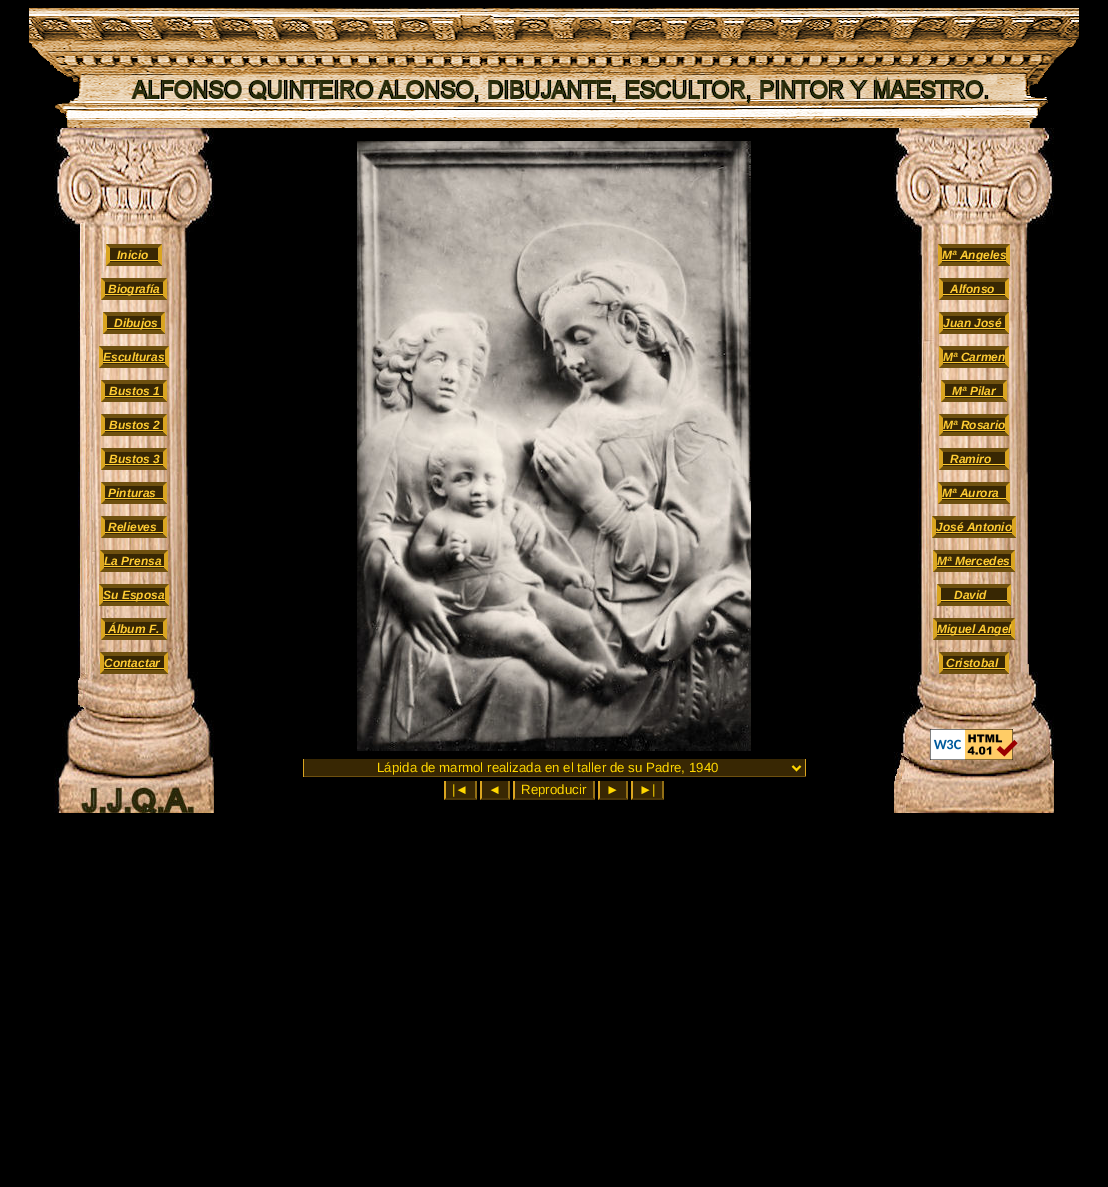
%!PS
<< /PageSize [1108 1187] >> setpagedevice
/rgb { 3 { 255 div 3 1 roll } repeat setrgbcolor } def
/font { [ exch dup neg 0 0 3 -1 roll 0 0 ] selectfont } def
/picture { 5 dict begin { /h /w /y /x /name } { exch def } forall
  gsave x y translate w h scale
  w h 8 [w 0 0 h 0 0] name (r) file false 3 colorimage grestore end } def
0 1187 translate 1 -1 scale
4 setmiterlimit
0 0 0 rgb
0 0 1108 1187 rectfill
(img/1.rgb) 29 8 1050 120 picture
(img/2.rgb) 54 128 160 685 picture
56 39 3 rgb
106 244 56 22 rectfill
110 80 15 rgb
106 244 moveto 162 244 lineto 158 248 lineto 110 248 lineto closepath fill
218 165 32 rgb
162 244 moveto 162 266 lineto 158 262 lineto 158 248 lineto closepath fill
110 80 15 rgb
162 266 moveto 106 266 lineto 110 262 lineto 158 262 lineto closepath fill
218 165 32 rgb
106 266 moveto 106 244 lineto 110 248 lineto 110 262 lineto closepath fill
255 204 51 rgb
110 260 48 1 rectfill
56 39 3 rgb
101 278 66 22 rectfill
110 80 15 rgb
101 278 moveto 167 278 lineto 163 282 lineto 105 282 lineto closepath fill
218 165 32 rgb
167 278 moveto 167 300 lineto 163 296 lineto 163 282 lineto closepath fill
110 80 15 rgb
167 300 moveto 101 300 lineto 105 296 lineto 163 296 lineto closepath fill
218 165 32 rgb
101 300 moveto 101 278 lineto 105 282 lineto 105 296 lineto closepath fill
255 204 51 rgb
105 294 58 1 rectfill
56 39 3 rgb
103 312 62 22 rectfill
110 80 15 rgb
103 312 moveto 165 312 lineto 161 316 lineto 107 316 lineto closepath fill
218 165 32 rgb
165 312 moveto 165 334 lineto 161 330 lineto 161 316 lineto closepath fill
110 80 15 rgb
165 334 moveto 103 334 lineto 107 330 lineto 161 330 lineto closepath fill
218 165 32 rgb
103 334 moveto 103 312 lineto 107 316 lineto 107 330 lineto closepath fill
255 204 51 rgb
107 328 54 1 rectfill
56 39 3 rgb
99 346 70 22 rectfill
110 80 15 rgb
99 346 moveto 169 346 lineto 165 350 lineto 103 350 lineto closepath fill
218 165 32 rgb
169 346 moveto 169 368 lineto 165 364 lineto 165 350 lineto closepath fill
110 80 15 rgb
169 368 moveto 99 368 lineto 103 364 lineto 165 364 lineto closepath fill
218 165 32 rgb
99 368 moveto 99 346 lineto 103 350 lineto 103 364 lineto closepath fill
255 204 51 rgb
103 362 62 1 rectfill
56 39 3 rgb
101 380 66 22 rectfill
110 80 15 rgb
101 380 moveto 167 380 lineto 163 384 lineto 105 384 lineto closepath fill
218 165 32 rgb
167 380 moveto 167 402 lineto 163 398 lineto 163 384 lineto closepath fill
110 80 15 rgb
167 402 moveto 101 402 lineto 105 398 lineto 163 398 lineto closepath fill
218 165 32 rgb
101 402 moveto 101 380 lineto 105 384 lineto 105 398 lineto closepath fill
255 204 51 rgb
105 396 58 1 rectfill
56 39 3 rgb
101 414 66 22 rectfill
110 80 15 rgb
101 414 moveto 167 414 lineto 163 418 lineto 105 418 lineto closepath fill
218 165 32 rgb
167 414 moveto 167 436 lineto 163 432 lineto 163 418 lineto closepath fill
110 80 15 rgb
167 436 moveto 101 436 lineto 105 432 lineto 163 432 lineto closepath fill
218 165 32 rgb
101 436 moveto 101 414 lineto 105 418 lineto 105 432 lineto closepath fill
255 204 51 rgb
105 430 58 1 rectfill
56 39 3 rgb
101 448 66 22 rectfill
110 80 15 rgb
101 448 moveto 167 448 lineto 163 452 lineto 105 452 lineto closepath fill
218 165 32 rgb
167 448 moveto 167 470 lineto 163 466 lineto 163 452 lineto closepath fill
110 80 15 rgb
167 470 moveto 101 470 lineto 105 466 lineto 163 466 lineto closepath fill
218 165 32 rgb
101 470 moveto 101 448 lineto 105 452 lineto 105 466 lineto closepath fill
255 204 51 rgb
105 464 58 1 rectfill
56 39 3 rgb
101 482 66 22 rectfill
110 80 15 rgb
101 482 moveto 167 482 lineto 163 486 lineto 105 486 lineto closepath fill
218 165 32 rgb
167 482 moveto 167 504 lineto 163 500 lineto 163 486 lineto closepath fill
110 80 15 rgb
167 504 moveto 101 504 lineto 105 500 lineto 163 500 lineto closepath fill
218 165 32 rgb
101 504 moveto 101 482 lineto 105 486 lineto 105 500 lineto closepath fill
255 204 51 rgb
105 498 58 1 rectfill
56 39 3 rgb
101 516 66 22 rectfill
110 80 15 rgb
101 516 moveto 167 516 lineto 163 520 lineto 105 520 lineto closepath fill
218 165 32 rgb
167 516 moveto 167 538 lineto 163 534 lineto 163 520 lineto closepath fill
110 80 15 rgb
167 538 moveto 101 538 lineto 105 534 lineto 163 534 lineto closepath fill
218 165 32 rgb
101 538 moveto 101 516 lineto 105 520 lineto 105 534 lineto closepath fill
255 204 51 rgb
105 532 58 1 rectfill
56 39 3 rgb
100 550 68 22 rectfill
110 80 15 rgb
100 550 moveto 168 550 lineto 164 554 lineto 104 554 lineto closepath fill
218 165 32 rgb
168 550 moveto 168 572 lineto 164 568 lineto 164 554 lineto closepath fill
110 80 15 rgb
168 572 moveto 100 572 lineto 104 568 lineto 164 568 lineto closepath fill
218 165 32 rgb
100 572 moveto 100 550 lineto 104 554 lineto 104 568 lineto closepath fill
255 204 51 rgb
104 566 60 1 rectfill
56 39 3 rgb
99 584 70 22 rectfill
110 80 15 rgb
99 584 moveto 169 584 lineto 165 588 lineto 103 588 lineto closepath fill
218 165 32 rgb
169 584 moveto 169 606 lineto 165 602 lineto 165 588 lineto closepath fill
110 80 15 rgb
169 606 moveto 99 606 lineto 103 602 lineto 165 602 lineto closepath fill
218 165 32 rgb
99 606 moveto 99 584 lineto 103 588 lineto 103 602 lineto closepath fill
255 204 51 rgb
103 600 62 1 rectfill
56 39 3 rgb
101 618 66 22 rectfill
110 80 15 rgb
101 618 moveto 167 618 lineto 163 622 lineto 105 622 lineto closepath fill
218 165 32 rgb
167 618 moveto 167 640 lineto 163 636 lineto 163 622 lineto closepath fill
110 80 15 rgb
167 640 moveto 101 640 lineto 105 636 lineto 163 636 lineto closepath fill
218 165 32 rgb
101 640 moveto 101 618 lineto 105 622 lineto 105 636 lineto closepath fill
255 204 51 rgb
105 634 58 1 rectfill
56 39 3 rgb
100 652 68 22 rectfill
110 80 15 rgb
100 652 moveto 168 652 lineto 164 656 lineto 104 656 lineto closepath fill
218 165 32 rgb
168 652 moveto 168 674 lineto 164 670 lineto 164 656 lineto closepath fill
110 80 15 rgb
168 674 moveto 100 674 lineto 104 670 lineto 164 670 lineto closepath fill
218 165 32 rgb
100 674 moveto 100 652 lineto 104 656 lineto 104 670 lineto closepath fill
255 204 51 rgb
104 668 60 1 rectfill
(img/3.rgb) 894 128 160 685 picture
56 39 3 rgb
938 244 72 22 rectfill
110 80 15 rgb
938 244 moveto 1010 244 lineto 1006 248 lineto 942 248 lineto closepath fill
218 165 32 rgb
1010 244 moveto 1010 266 lineto 1006 262 lineto 1006 248 lineto closepath fill
110 80 15 rgb
1010 266 moveto 938 266 lineto 942 262 lineto 1006 262 lineto closepath fill
218 165 32 rgb
938 266 moveto 938 244 lineto 942 248 lineto 942 262 lineto closepath fill
255 204 51 rgb
942 260 64 1 rectfill
56 39 3 rgb
939 278 70 22 rectfill
110 80 15 rgb
939 278 moveto 1009 278 lineto 1005 282 lineto 943 282 lineto closepath fill
218 165 32 rgb
1009 278 moveto 1009 300 lineto 1005 296 lineto 1005 282 lineto closepath fill
110 80 15 rgb
1009 300 moveto 939 300 lineto 943 296 lineto 1005 296 lineto closepath fill
218 165 32 rgb
939 300 moveto 939 278 lineto 943 282 lineto 943 296 lineto closepath fill
255 204 51 rgb
943 294 62 1 rectfill
56 39 3 rgb
939 312 70 22 rectfill
110 80 15 rgb
939 312 moveto 1009 312 lineto 1005 316 lineto 943 316 lineto closepath fill
218 165 32 rgb
1009 312 moveto 1009 334 lineto 1005 330 lineto 1005 316 lineto closepath fill
110 80 15 rgb
1009 334 moveto 939 334 lineto 943 330 lineto 1005 330 lineto closepath fill
218 165 32 rgb
939 334 moveto 939 312 lineto 943 316 lineto 943 330 lineto closepath fill
255 204 51 rgb
943 328 62 1 rectfill
56 39 3 rgb
939 346 70 22 rectfill
110 80 15 rgb
939 346 moveto 1009 346 lineto 1005 350 lineto 943 350 lineto closepath fill
218 165 32 rgb
1009 346 moveto 1009 368 lineto 1005 364 lineto 1005 350 lineto closepath fill
110 80 15 rgb
1009 368 moveto 939 368 lineto 943 364 lineto 1005 364 lineto closepath fill
218 165 32 rgb
939 368 moveto 939 346 lineto 943 350 lineto 943 364 lineto closepath fill
255 204 51 rgb
943 362 62 1 rectfill
56 39 3 rgb
941 380 66 22 rectfill
110 80 15 rgb
941 380 moveto 1007 380 lineto 1003 384 lineto 945 384 lineto closepath fill
218 165 32 rgb
1007 380 moveto 1007 402 lineto 1003 398 lineto 1003 384 lineto closepath fill
110 80 15 rgb
1007 402 moveto 941 402 lineto 945 398 lineto 1003 398 lineto closepath fill
218 165 32 rgb
941 402 moveto 941 380 lineto 945 384 lineto 945 398 lineto closepath fill
255 204 51 rgb
945 396 58 1 rectfill
56 39 3 rgb
939 414 70 22 rectfill
110 80 15 rgb
939 414 moveto 1009 414 lineto 1005 418 lineto 943 418 lineto closepath fill
218 165 32 rgb
1009 414 moveto 1009 436 lineto 1005 432 lineto 1005 418 lineto closepath fill
110 80 15 rgb
1009 436 moveto 939 436 lineto 943 432 lineto 1005 432 lineto closepath fill
218 165 32 rgb
939 436 moveto 939 414 lineto 943 418 lineto 943 432 lineto closepath fill
255 204 51 rgb
943 430 62 1 rectfill
56 39 3 rgb
939 448 70 22 rectfill
110 80 15 rgb
939 448 moveto 1009 448 lineto 1005 452 lineto 943 452 lineto closepath fill
218 165 32 rgb
1009 448 moveto 1009 470 lineto 1005 466 lineto 1005 452 lineto closepath fill
110 80 15 rgb
1009 470 moveto 939 470 lineto 943 466 lineto 1005 466 lineto closepath fill
218 165 32 rgb
939 470 moveto 939 448 lineto 943 452 lineto 943 466 lineto closepath fill
255 204 51 rgb
943 464 62 1 rectfill
56 39 3 rgb
938 482 72 22 rectfill
110 80 15 rgb
938 482 moveto 1010 482 lineto 1006 486 lineto 942 486 lineto closepath fill
218 165 32 rgb
1010 482 moveto 1010 504 lineto 1006 500 lineto 1006 486 lineto closepath fill
110 80 15 rgb
1010 504 moveto 938 504 lineto 942 500 lineto 1006 500 lineto closepath fill
218 165 32 rgb
938 504 moveto 938 482 lineto 942 486 lineto 942 500 lineto closepath fill
255 204 51 rgb
942 498 64 1 rectfill
56 39 3 rgb
932 516 84 22 rectfill
110 80 15 rgb
932 516 moveto 1016 516 lineto 1012 520 lineto 936 520 lineto closepath fill
218 165 32 rgb
1016 516 moveto 1016 538 lineto 1012 534 lineto 1012 520 lineto closepath fill
110 80 15 rgb
1016 538 moveto 932 538 lineto 936 534 lineto 1012 534 lineto closepath fill
218 165 32 rgb
932 538 moveto 932 516 lineto 936 520 lineto 936 534 lineto closepath fill
255 204 51 rgb
936 532 76 1 rectfill
56 39 3 rgb
933 550 82 22 rectfill
110 80 15 rgb
933 550 moveto 1015 550 lineto 1011 554 lineto 937 554 lineto closepath fill
218 165 32 rgb
1015 550 moveto 1015 572 lineto 1011 568 lineto 1011 554 lineto closepath fill
110 80 15 rgb
1015 572 moveto 933 572 lineto 937 568 lineto 1011 568 lineto closepath fill
218 165 32 rgb
933 572 moveto 933 550 lineto 937 554 lineto 937 568 lineto closepath fill
255 204 51 rgb
937 566 74 1 rectfill
56 39 3 rgb
937 584 74 22 rectfill
110 80 15 rgb
937 584 moveto 1011 584 lineto 1007 588 lineto 941 588 lineto closepath fill
218 165 32 rgb
1011 584 moveto 1011 606 lineto 1007 602 lineto 1007 588 lineto closepath fill
110 80 15 rgb
1011 606 moveto 937 606 lineto 941 602 lineto 1007 602 lineto closepath fill
218 165 32 rgb
937 606 moveto 937 584 lineto 941 588 lineto 941 602 lineto closepath fill
255 204 51 rgb
941 600 66 1 rectfill
56 39 3 rgb
933 618 82 22 rectfill
110 80 15 rgb
933 618 moveto 1015 618 lineto 1011 622 lineto 937 622 lineto closepath fill
218 165 32 rgb
1015 618 moveto 1015 640 lineto 1011 636 lineto 1011 622 lineto closepath fill
110 80 15 rgb
1015 640 moveto 933 640 lineto 937 636 lineto 1011 636 lineto closepath fill
218 165 32 rgb
933 640 moveto 933 618 lineto 937 622 lineto 937 636 lineto closepath fill
255 204 51 rgb
937 634 74 1 rectfill
56 39 3 rgb
939 652 70 22 rectfill
110 80 15 rgb
939 652 moveto 1009 652 lineto 1005 656 lineto 943 656 lineto closepath fill
218 165 32 rgb
1009 652 moveto 1009 674 lineto 1005 670 lineto 1005 656 lineto closepath fill
110 80 15 rgb
1009 674 moveto 939 674 lineto 943 670 lineto 1005 670 lineto closepath fill
218 165 32 rgb
939 674 moveto 939 652 lineto 943 656 lineto 943 670 lineto closepath fill
255 204 51 rgb
943 668 62 1 rectfill
(img/4.rgb) 930 729 88 31 picture
(img/5.rgb) 357 141 394 610 picture
[
  [304 759 501 17 56 39 3]
  [805 759 1 18 218 165 32]
  [303 776 503 1 110 80 15]
  [303 759 1 18 218 165 32]
] { aload pop rgb rectfill } forall
255 215 0 rgb
2 setlinewidth
792.5 766 moveto 796.5 770 lineto 800.5 766 lineto stroke
56 39 3 rgb
444 781 33 19 rectfill
145 110 21 rgb
477 781 moveto 477 800 lineto 475 798 lineto 475 781 lineto closepath fill
73 53 10 rgb
477 800 moveto 444 800 lineto 446 798 lineto 475 798 lineto closepath fill
218 165 32 rgb
444 800 moveto 444 781 lineto 446 781 lineto 446 798 lineto closepath fill
56 39 3 rgb
480 781 30 19 rectfill
145 110 21 rgb
510 781 moveto 510 800 lineto 508 798 lineto 508 781 lineto closepath fill
73 53 10 rgb
510 800 moveto 480 800 lineto 482 798 lineto 508 798 lineto closepath fill
218 165 32 rgb
480 800 moveto 480 781 lineto 482 781 lineto 482 798 lineto closepath fill
56 39 3 rgb
513 781 82 19 rectfill
145 110 21 rgb
595 781 moveto 595 800 lineto 593 798 lineto 593 781 lineto closepath fill
73 53 10 rgb
595 800 moveto 513 800 lineto 515 798 lineto 593 798 lineto closepath fill
218 165 32 rgb
513 800 moveto 513 781 lineto 515 781 lineto 515 798 lineto closepath fill
56 39 3 rgb
598 781 30 19 rectfill
145 110 21 rgb
628 781 moveto 628 800 lineto 626 798 lineto 626 781 lineto closepath fill
73 53 10 rgb
628 800 moveto 598 800 lineto 600 798 lineto 626 798 lineto closepath fill
218 165 32 rgb
598 800 moveto 598 781 lineto 600 781 lineto 600 798 lineto closepath fill
56 39 3 rgb
631 781 33 19 rectfill
145 110 21 rgb
664 781 moveto 664 800 lineto 662 798 lineto 662 781 lineto closepath fill
73 53 10 rgb
664 800 moveto 631 800 lineto 633 798 lineto 662 798 lineto closepath fill
218 165 32 rgb
631 800 moveto 631 781 lineto 633 781 lineto 633 798 lineto closepath fill
/LiberationSans-BoldItalic 12 font
255 204 51 rgb
[
  [(Inicio) 117 259]
  [(Biografía) 108 293]
  [(Dibujos) 114 327]
  [(Esculturas) 103 361]
  [(Bustos 1) 109 395]
  [(Bustos 2) 109 429]
  [(Bustos 3) 109 463]
  [(Pinturas) 108 497]
  [(Relieves) 108 531]
  [(La Prensa) 104 565]
  [(Su Esposa) 103 599]
  [(Álbum F.) 108 633]
  [(Contactar) 104 667]
  [(Mª Angeles) 942 259]
  [(Alfonso) 950 293]
  [(Juan José) 943 327]
  [(Mª Carmen) 943 361]
  [(Mª Pilar) 952 395]
  [(Mª Rosario) 943 429]
  [(Ramiro) 950 463]
  [(Mª Aurora) 942 497]
  [(José Antonio) 936 531]
  [(Mª Mercedes) 937 565]
  [(David) 954 599]
  [(Miguel Angel) 937 633]
  [(Cristobal) 946 667]
] { aload pop moveto show } forall
/LiberationSans-Regular 13.3 font
255 215 0 rgb
[
  [(Lápida de marmol realizada en el taller de su Padre, 1940) 377 772]
  [(|◄) 452 794]
  [(◄) 488 794]
  [(Reproducir) 521 794]
  [(►) 606 794]
  [(►|) 639 794]
] { aload pop moveto show } forall
showpage
